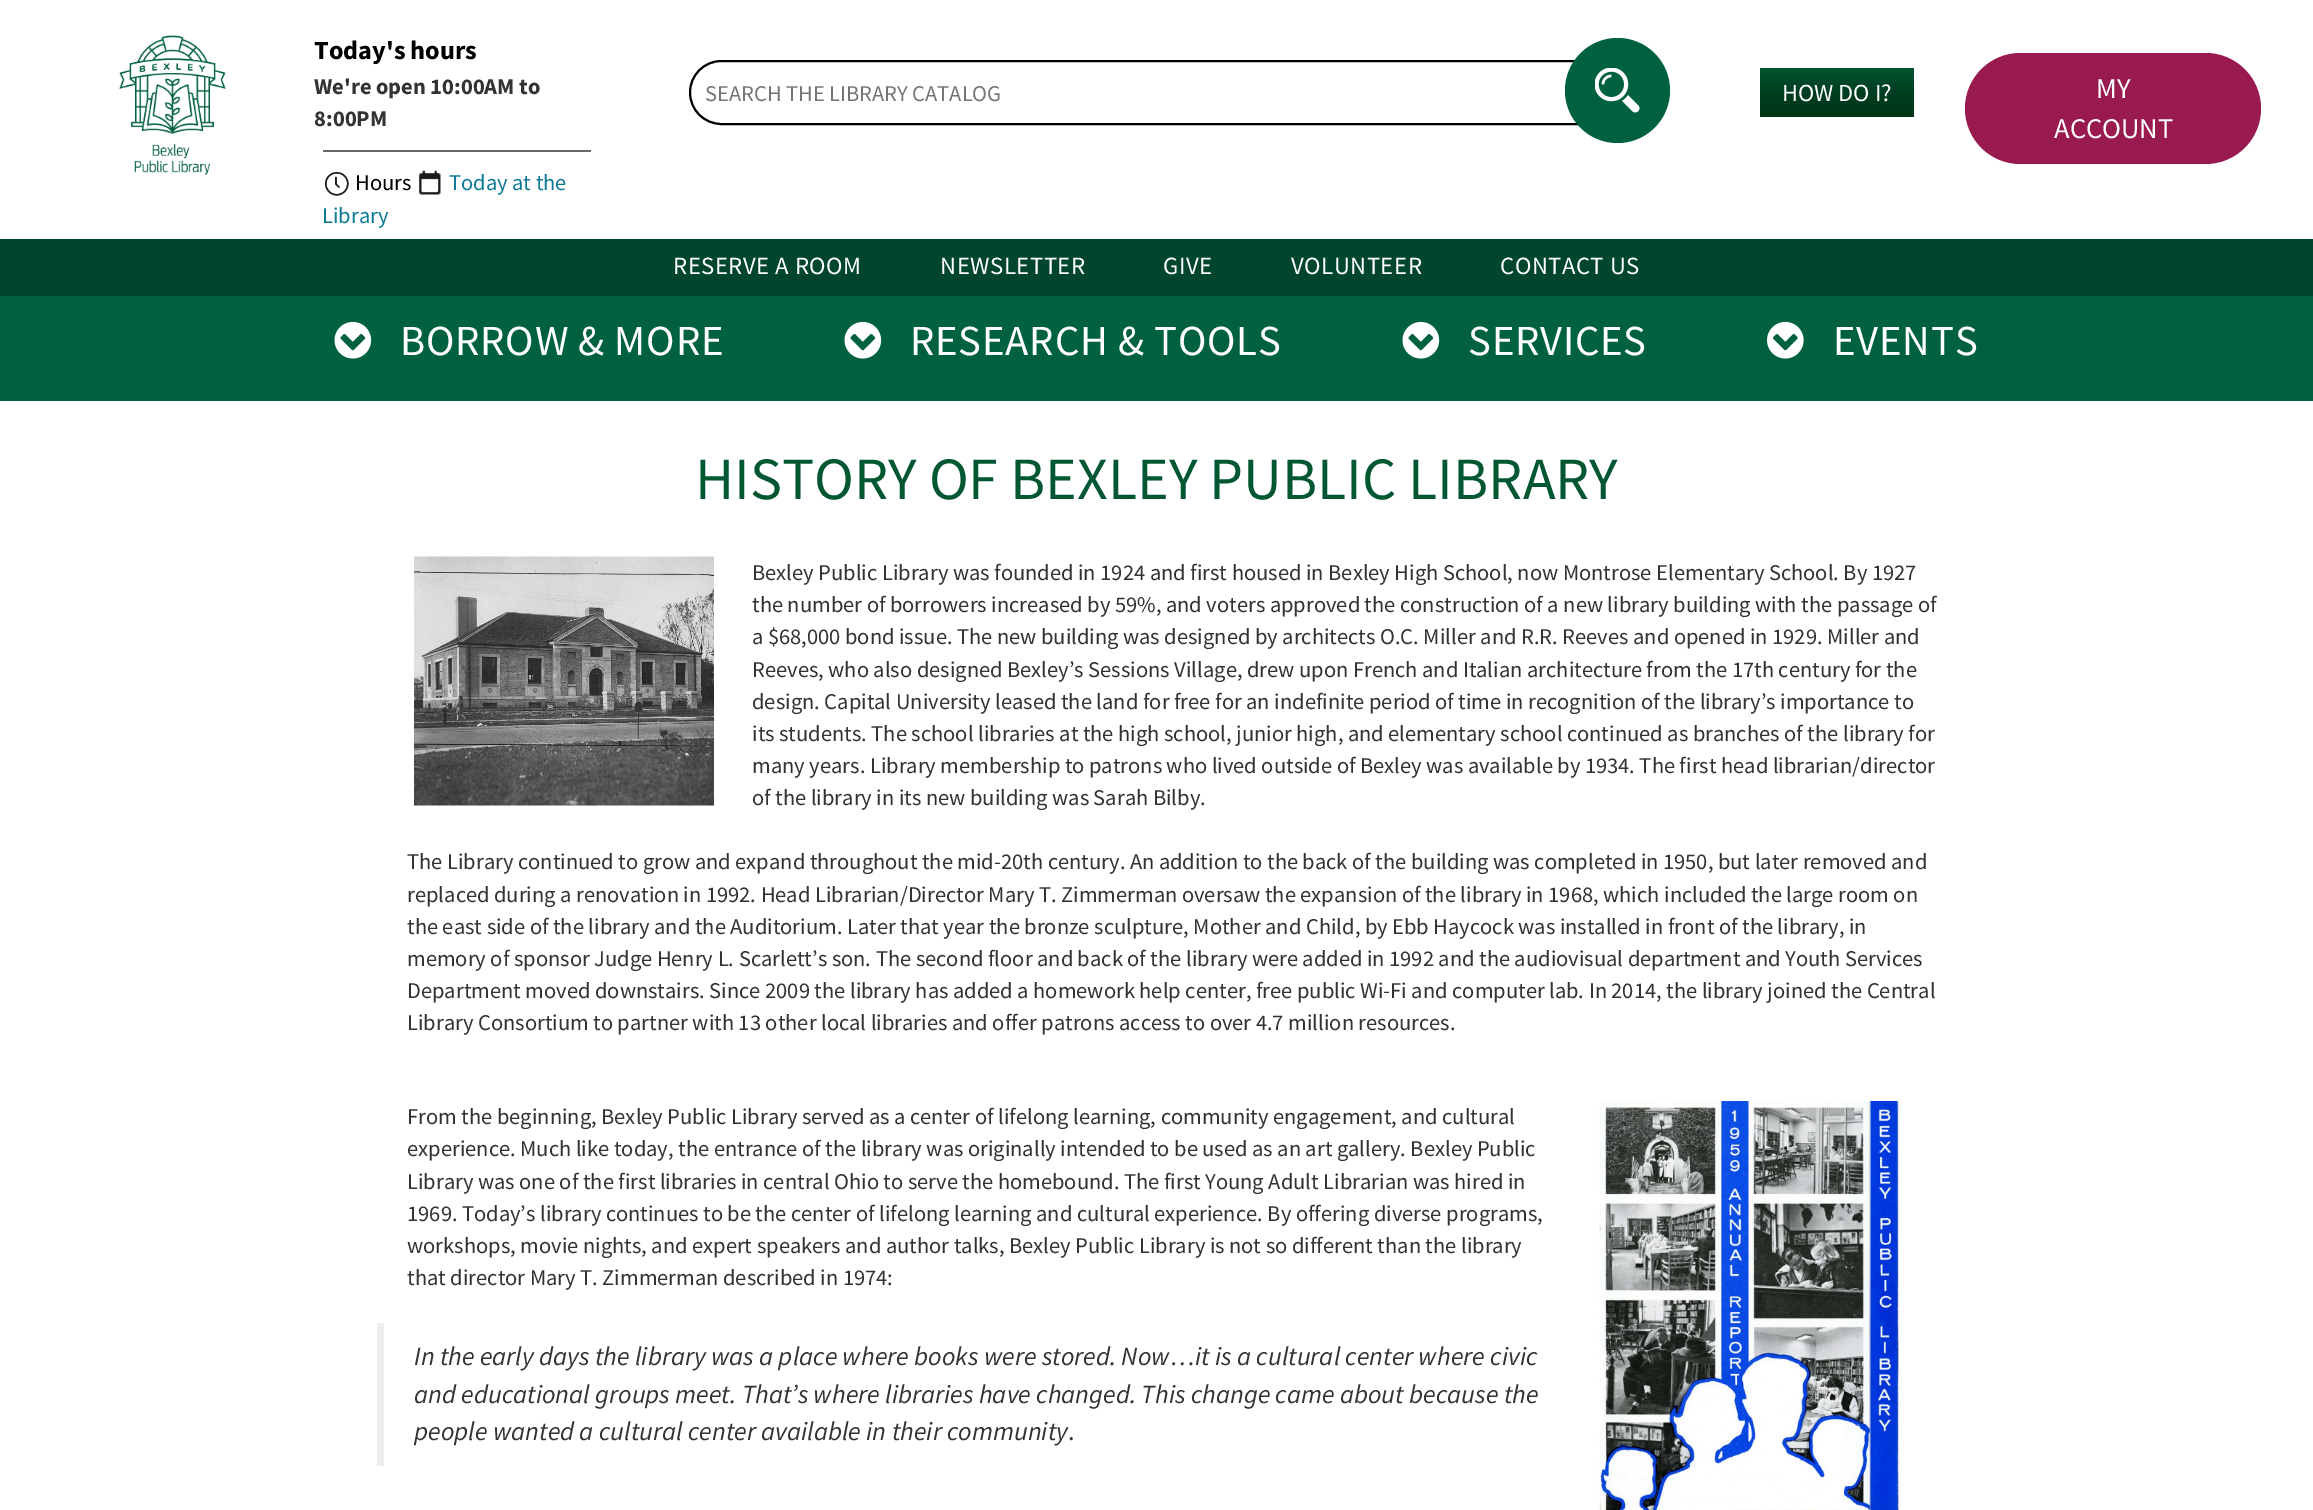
%!PS
<< /PageSize [2313 1510] >> setpagedevice
/rgb { 3 { 255 div 3 1 roll } repeat setrgbcolor } def
/font { [ exch dup neg 0 0 3 -1 roll 0 0 ] selectfont } def
/circle { newpath 0 360 arc closepath } def
/roundrect { 5 dict begin { /r /h /w /y /x } { exch def } forall
  x r add y moveto x w add y 2 copy h add r arct x w add y h add x 1 index r arct
  x y h add x y r arct x y 2 copy exch w add exch r arct closepath end } def
/picture { 5 dict begin { /h /w /y /x /name } { exch def } forall
  gsave x y translate w h scale
  w h 8 [w 0 0 h 0 0] name (r) file false 3 colorimage grestore end } def
0 1510 translate 1 -1 scale
4 setmiterlimit
255 255 255 rgb
0 0 2313 1510 rectfill
(img/1.rgb) 119 35 107 140 picture
101 104 104 rgb
323 150 268 2 rectfill
(img/2.rgb) 325 172 24 24 picture
(img/3.rgb) 419 170 22 25 picture
0 0 0 rgb
2 setlinewidth
690 61 941 63 31.5 roundrect stroke
0 97 65 rgb
1617.5 90.5 52.5 circle fill
(img/4.rgb) 1595 68 45 45 picture
gsave 1760 68 moveto 1914 68 lineto 1914 117 lineto 1760 117 lineto closepath clip newpath
<< /ShadingType 2 /ColorSpace /DeviceRGB /Coords [1837 67 1837 117] /Extend [true true] /Function << /FunctionType 3 /Domain [0 1] /Functions [<< /FunctionType 2 /Domain [0 1] /C0 [0 0.341 0.196] /C1 [0 0.243 0.129] /N 1 >> << /FunctionType 2 /Domain [0 1] /C0 [0 0.243 0.129] /C1 [0 0.243 0.129] /N 1 >> << /FunctionType 2 /Domain [0 1] /C0 [0 0.243 0.129] /C1 [0.004 0.212 0.09] /N 1 >>] /Bounds [0.5 0.51] /Encode [0 1 0 1 0 1] >> >> shfill grestore
153 26 79 rgb
1965 53 296 111 55.5 roundrect fill
0 70 44 rgb
0 239 2313 57 rectfill
0 97 65 rgb
0 296 2313 105 rectfill
(img/5.rgb) 334 321 38 38 picture
(img/5.rgb) 844 321 38 38 picture
(img/5.rgb) 1402 321 38 38 picture
(img/6.rgb) 1767 321 37 38 picture
(img/7.rgb) 414 556 300 250 picture
(img/8.rgb) 1599 1101 300 409 picture
238 238 238 rgb
377 1323 7 143 rectfill
/SourceSansPro-Bold 26.25 font
0 0 0 rgb
314 59 moveto (Today's hours) show
/SourceSansPro-Bold 22.5 font
51 51 51 rgb
314 94 moveto (We're open 10:00AM to) show
314 126 moveto (8:00PM) show
/SourceSansPro-Regular 22.5 font
0 0 0 rgb
355 190 moveto (Hours) show
15 122 150 rgb
449 190 moveto (Today at the) show
322 223 moveto (Library) show
117 117 117 rgb
705 101 moveto (SEARCH THE LIBRARY CATALOG) show
/SourceSansPro-Regular 24.5 font
255 255 255 rgb
1782 101 moveto (HOW DO I?) show
/SourceSansPro-Regular 28.5 font
2096 98 moveto (MY) show
2054 138 moveto (ACCOUNT) show
/SourceSansPro-Regular 24.75 font
673 274 moveto 0.5 0 (RESERVE A ROOM) ashow
940 274 moveto 0.5 0 (NEWSLETTER) ashow
1163 274 moveto 0.5 0 (GIVE) ashow
1291 274 moveto 0.5 0 (VOLUNTEER) ashow
1500 274 moveto 0.5 0 (CONTACT US) ashow
/SourceSansPro-Regular 42.75 font
400 355 moveto 0.8 0 (BORROW & MORE) ashow
910 355 moveto 0.8 0 (RESEARCH & TOOLS) ashow
1468 355 moveto 0.8 0 (SERVICES) ashow
1833 355 moveto 0.8 0 (EVENTS) ashow
/SourceSansPro-Regular 60 font
0 87 50 rgb
695 499 moveto (HISTORY OF BEXLEY PUBLIC LIBRARY) show
/SourceSansPro-Regular 22.5 font
51 51 51 rgb
[
  [(Bexley Public Library was founded in 1924 and first housed in Bexley High School, now Montrose Elementary School. By 1927) 752 580]
  [(the number of borrowers increased by 59%, and voters approved the construction of a new library building with the passage of) 752 612]
  [(a $68,000 bond issue. The new building was designed by architects O.C. Miller and R.R. Reeves and opened in 1929. Miller and) 752 644]
  [(Reeves, who also designed Bexley’s Sessions Village, drew upon French and Italian architecture from the 17th century for the) 752 677]
  [(design. Capital University leased the land for free for an indefinite period of time in recognition of the library’s importance to) 752 709]
  [(its students. The school libraries at the high school, junior high, and elementary school continued as branches of the library for) 752 741]
  [(many years. Library membership to patrons who lived outside of Bexley was available by 1934. The first head librarian/director) 752 773]
  [(of the library in its new building was Sarah Bilby.) 752 805]
  [(The Library continued to grow and expand throughout the mid-20th century. An addition to the back of the building was completed in 1950, but later removed and) 407 869]
  [(replaced during a renovation in 1992. Head Librarian/Director Mary T. Zimmerman oversaw the expansion of the library in 1968, which included the large room on) 407 902]
  [(the east side of the library and the Auditorium. Later that year the bronze sculpture, Mother and Child, by Ebb Haycock was installed in front of the library, in) 407 934]
  [(memory of sponsor Judge Henry L. Scarlett’s son. The second floor and back of the library were added in 1992 and the audiovisual department and Youth Services) 407 966]
  [(Department moved downstairs. Since 2009 the library has added a homework help center, free public Wi-Fi and computer lab. In 2014, the library joined the Central) 407 998]
  [(Library Consortium to partner with 13 other local libraries and offer patrons access to over 4.7 million resources.) 407 1030]
  [(From the beginning, Bexley Public Library served as a center of lifelong learning, community engagement, and cultural) 407 1124]
  [(experience. Much like today, the entrance of the library was originally intended to be used as an art gallery. Bexley Public) 407 1156]
  [(Library was one of the first libraries in central Ohio to serve the homebound. The first Young Adult Librarian was hired in) 407 1189]
  [(1969. Today’s library continues to be the center of lifelong learning and cultural experience. By offering diverse programs,) 407 1221]
  [(workshops, movie nights, and expert speakers and author talks, Bexley Public Library is not so different than the library) 407 1253]
  [(that director Mary T. Zimmerman described in 1974:) 407 1285]
] { aload pop moveto show } forall
/SourceSansPro-Italic 26.25 font
[
  [(In the early days the library was a place where books were stored. Now…it is a cultural center where civic) 414 1365]
  [(and educational groups meet. That’s where libraries have changed. This change came about because the) 414 1403]
  [(people wanted a cultural center available in their community) 414 1440]
] { aload pop moveto show } forall
/SourceSansPro-Regular 26.25 font
1068 1440 moveto (.) show
showpage
